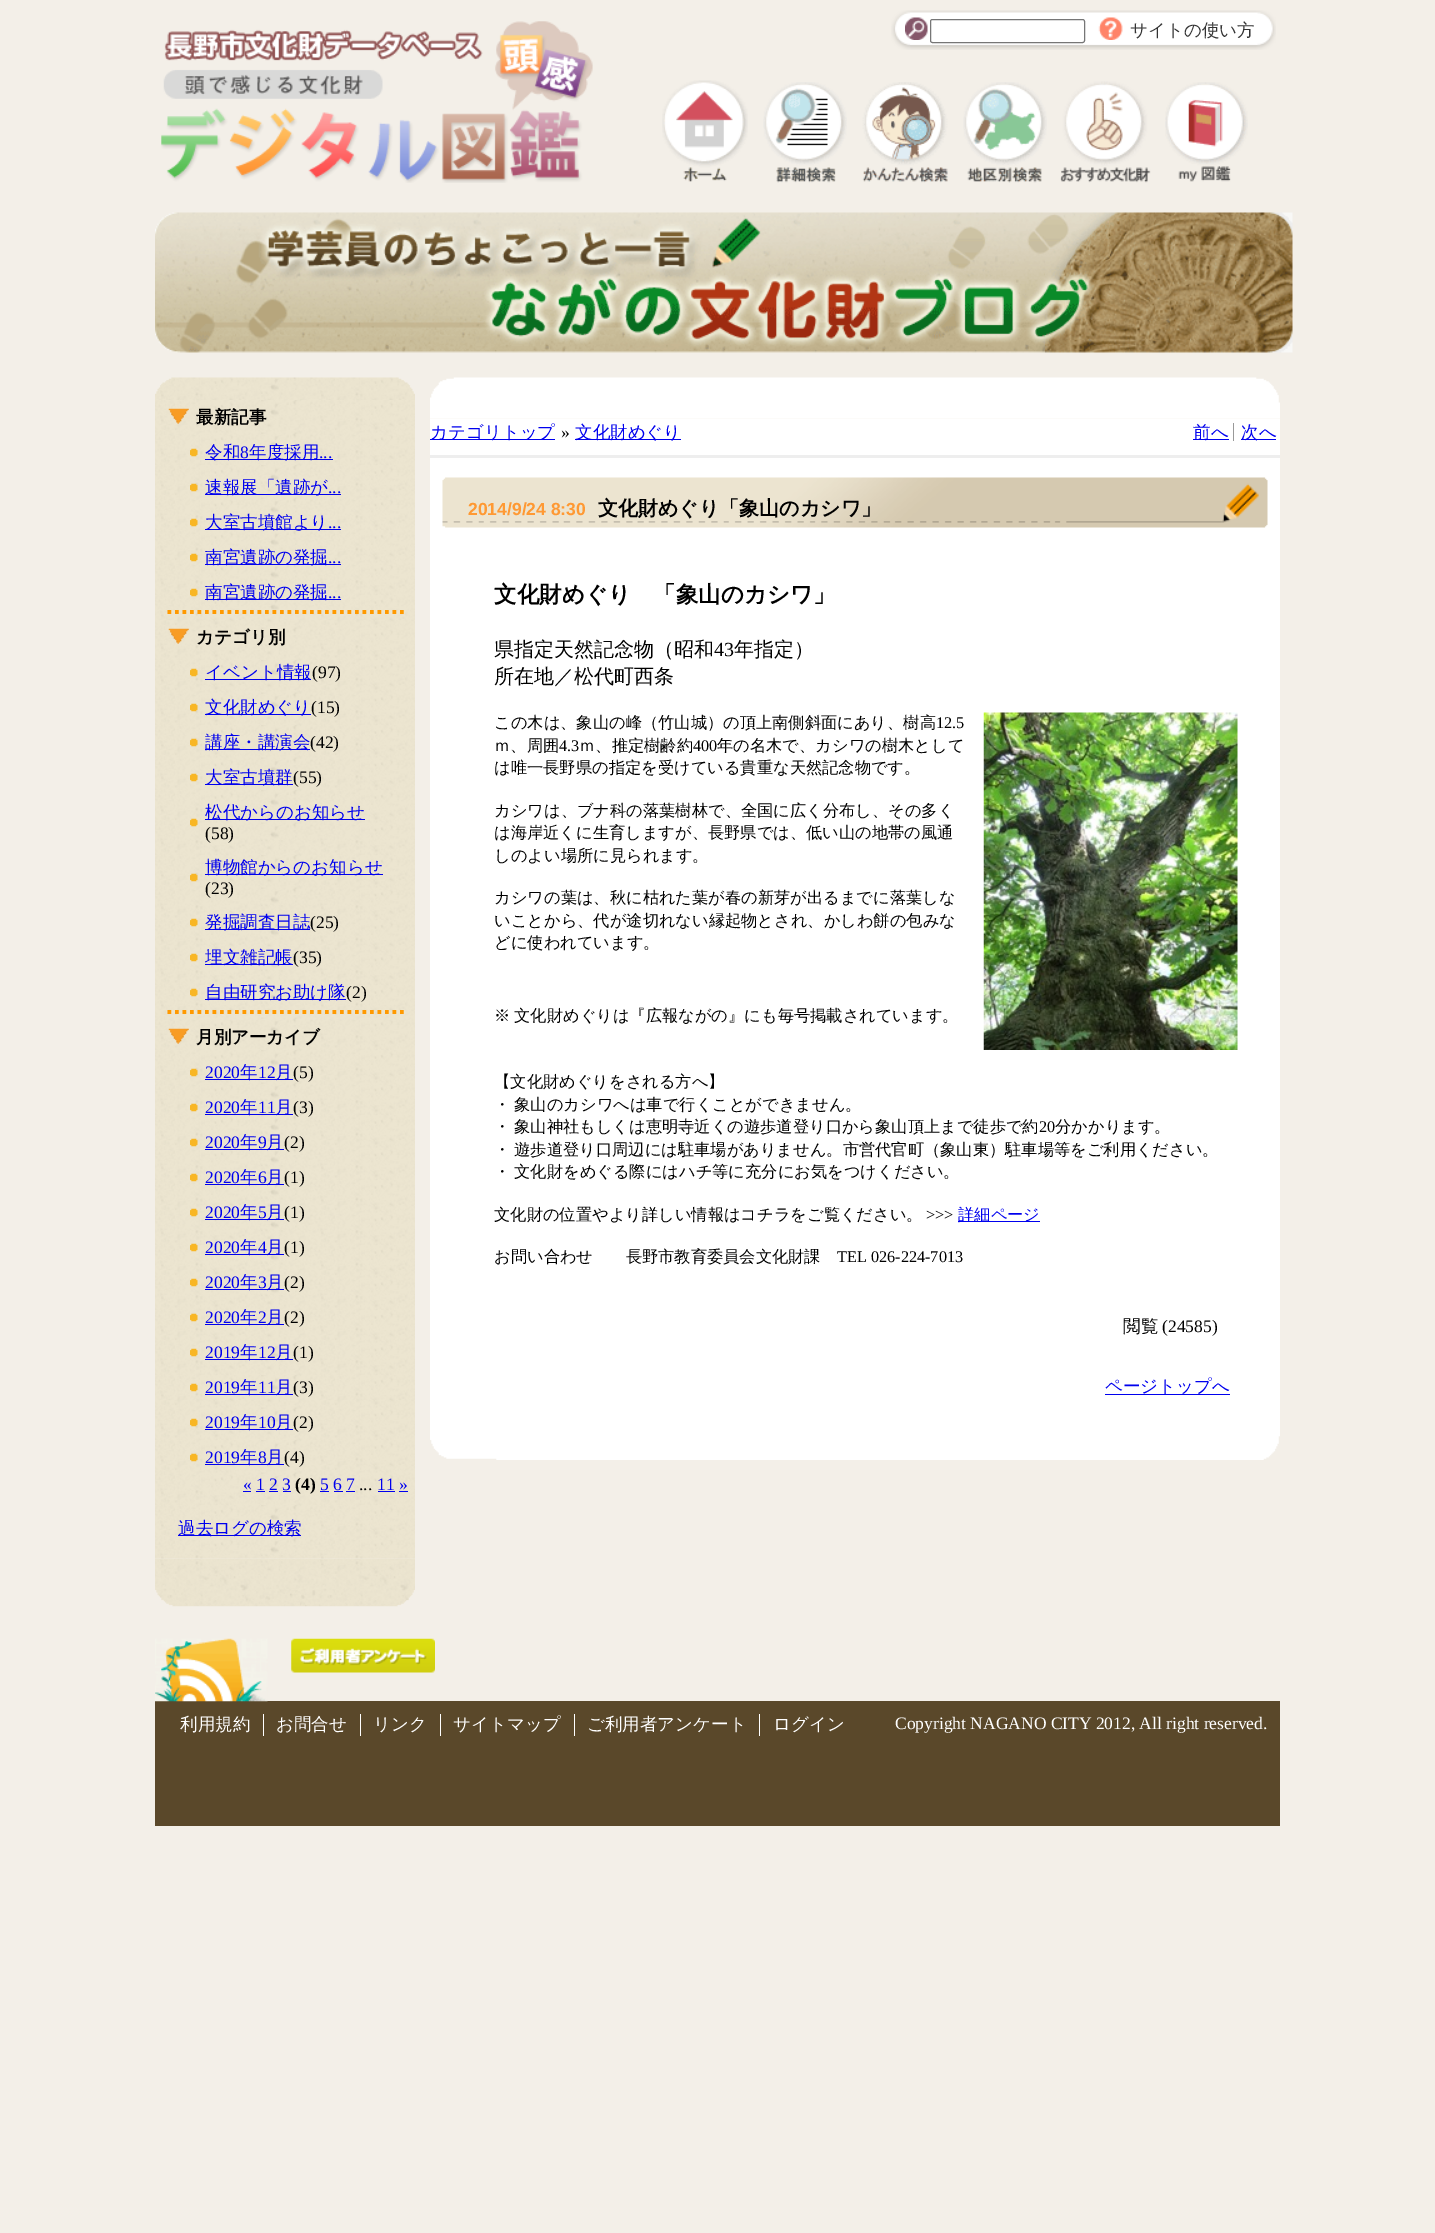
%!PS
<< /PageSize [1435 2233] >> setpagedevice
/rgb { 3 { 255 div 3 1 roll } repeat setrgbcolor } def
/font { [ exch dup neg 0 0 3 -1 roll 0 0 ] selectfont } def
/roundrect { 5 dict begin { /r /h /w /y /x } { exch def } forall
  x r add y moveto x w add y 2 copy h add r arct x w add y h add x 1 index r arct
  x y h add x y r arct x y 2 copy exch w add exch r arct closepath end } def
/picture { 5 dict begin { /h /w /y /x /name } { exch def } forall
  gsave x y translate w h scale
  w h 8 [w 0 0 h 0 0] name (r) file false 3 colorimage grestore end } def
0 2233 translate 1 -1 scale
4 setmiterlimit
243 239 232 rgb
0 0 1435 2233 rectfill
(img/1.rgb) 161 21 432 162 picture
(img/2.rgb) 891 10 385 40 picture
(img/3.rgb) 905 17 23 23 picture
118 118 118 rgb
930.5 19.5 154 23 2 roundrect stroke
(img/4.rgb) 1098 17 25 23 picture
(img/5.rgb) 662 80 86 102 picture
(img/6.rgb) 763 82 84 101 picture
(img/7.rgb) 862 82 86 101 picture
(img/8.rgb) 963 82 84 101 picture
(img/9.rgb) 1060 81 91 102 picture
(img/10.rgb) 1165 82 83 100 picture
(img/11.rgb) 155 212 1138 141 picture
(img/12.rgb) 155 377 260 23 picture
(img/13.rgb) 155 400 260 1159 picture
255 153 0 rgb
3.8 setlinewidth
[3.75 3.75] 0 setdash
167.5 612 moveto 405 612 lineto stroke
(img/14.rgb) 168 408 21 16 picture
(img/15.rgb) 190 448 8 9 picture
0 0 238 rgb
205 459 128 1 rectfill
(img/16.rgb) 190 483 8 9 picture
205 494 136 1 rectfill
(img/17.rgb) 190 518 8 9 picture
205 529 136 1 rectfill
(img/18.rgb) 190 553 8 9 picture
205 564 136 1 rectfill
(img/19.rgb) 190 588 8 9 picture
205 599 136 1 rectfill
255 153 0 rgb
167.5 1012 moveto 405 1012 lineto stroke
(img/20.rgb) 168 628 21 16 picture
(img/21.rgb) 190 668 8 9 picture
0 0 238 rgb
205 679 106 1 rectfill
(img/22.rgb) 190 703 8 9 picture
205 714 106 1 rectfill
(img/23.rgb) 190 738 8 9 picture
205 749 105 1 rectfill
(img/15.rgb) 190 773 8 9 picture
205 784 88 1 rectfill
(img/24.rgb) 190 818 8 9 picture
205 819 160 1 rectfill
(img/16.rgb) 190 873 8 9 picture
205 874 178 1 rectfill
(img/25.rgb) 190 918 8 9 picture
205 929 105 1 rectfill
(img/26.rgb) 190 953 8 9 picture
205 964 88 1 rectfill
(img/27.rgb) 190 988 8 9 picture
205 999 141 1 rectfill
(img/28.rgb) 168 1028 21 16 picture
(img/16.rgb) 190 1068 8 9 picture
205 1079 88 1 rectfill
(img/29.rgb) 190 1103 8 9 picture
205 1114 88 1 rectfill
(img/18.rgb) 190 1138 8 9 picture
205 1149 79 1 rectfill
(img/19.rgb) 190 1173 8 9 picture
205 1184 79 1 rectfill
(img/24.rgb) 190 1208 8 9 picture
205 1219 79 1 rectfill
(img/25.rgb) 190 1243 8 9 picture
205 1254 79 1 rectfill
(img/26.rgb) 190 1278 8 9 picture
205 1289 79 1 rectfill
(img/27.rgb) 190 1313 8 9 picture
205 1324 79 1 rectfill
(img/30.rgb) 190 1348 8 9 picture
205 1359 88 1 rectfill
(img/21.rgb) 190 1383 8 9 picture
205 1394 88 1 rectfill
(img/22.rgb) 190 1418 8 9 picture
205 1429 88 1 rectfill
(img/23.rgb) 190 1453 8 9 picture
[
  [205 1464 79 1 0 0 238]
  [243 1491 8 1 0 0 238]
  [320 1491 9 1 0 0 238]
  [378 1491 17 1 0 0 238]
  [256 1491 9 1 0 0 238]
  [269 1491 9 1 0 0 238]
  [283 1491 8 1 0 0 238]
  [334 1491 9 1 0 0 238]
  [346 1491 9 1 0 0 238]
  [399 1491 9 1 0 0 238]
  [178 1535 123 1 0 0 238]
] { aload pop rgb rectfill } forall
(img/31.rgb) 155 1559 260 48 picture
(img/32.rgb) 430 377 850 42 picture
[
  [430 419 850 1005 255 255 255]
  [430 455 850 3 238 238 238]
  [430 439 125 1 0 0 238]
  [575 439 106 1 0 0 238]
  [1233 423 1 18 153 153 153]
  [1193 439 36 1 0 0 238]
  [1241 439 35 1 0 0 238]
] { aload pop rgb rectfill } forall
(img/33.rgb) 442 477 826 51 picture
(img/34.rgb) 983 712 255 338 picture
958 1221 82 1 rectfill
1105 1394 125 1 rectfill
(img/35.rgb) 430 1424 850 36 picture
90 72 42 rgb
155 1701 1125 125 rectfill
(img/36.rgb) 155 1638 113 64 picture
(img/37.rgb) 291 1638 144 35 picture
[
  [263 1714 1 22 255 255 255]
  [360 1714 1 22 255 255 255]
  [440 1714 1 22 255 255 255]
  [574 1714 1 22 255 255 255]
  [759 1714 1 22 255 255 255]
] { aload pop rgb rectfill } forall
/WenQuanYiZenHei-Medium 17.5 font
51 51 51 rgb
1130 36 moveto (サイトの使い方) show
/WenQuanYiZenHei-Bold 17.5 font
0 0 0 rgb
196 423 moveto (最新記事) show
/WenQuanYiZenHei-Medium 17.5 font
0 0 238 rgb
205 458 moveto (令和) show
/LiberationSerif-Regular 17.5 font
240 458 moveto (8) show
/WenQuanYiZenHei-Medium 17.5 font
249 458 moveto (年度採用) show
/LiberationSerif-Regular 17.5 font
319 458 moveto (...) show
/WenQuanYiZenHei-Medium 17.5 font
205 493 moveto (速報展「遺跡が) show
/LiberationSerif-Regular 17.5 font
328 493 moveto (...) show
/WenQuanYiZenHei-Medium 17.5 font
205 528 moveto (大室古墳館より) show
/LiberationSerif-Regular 17.5 font
328 528 moveto (...) show
/WenQuanYiZenHei-Medium 17.5 font
205 563 moveto (南宮遺跡の発掘) show
/LiberationSerif-Regular 17.5 font
328 563 moveto (...) show
/WenQuanYiZenHei-Medium 17.5 font
205 598 moveto (南宮遺跡の発掘) show
/LiberationSerif-Regular 17.5 font
328 598 moveto (...) show
/WenQuanYiZenHei-Bold 17.5 font
0 0 0 rgb
196 643 moveto (カテゴリ別) show
/WenQuanYiZenHei-Medium 17.5 font
0 0 238 rgb
205 678 moveto (イベント情報) show
/LiberationSerif-Regular 17.5 font
0 0 0 rgb
312 678 moveto (\(97\)) show
/WenQuanYiZenHei-Medium 17.5 font
0 0 238 rgb
205 713 moveto (文化財めぐり) show
/LiberationSerif-Regular 17.5 font
0 0 0 rgb
311 713 moveto (\(15\)) show
/WenQuanYiZenHei-Medium 17.5 font
0 0 238 rgb
205 748 moveto (講座・講演会) show
/LiberationSerif-Regular 17.5 font
0 0 0 rgb
310 748 moveto (\(42\)) show
/WenQuanYiZenHei-Medium 17.5 font
0 0 238 rgb
205 783 moveto (大室古墳群) show
/LiberationSerif-Regular 17.5 font
0 0 0 rgb
293 783 moveto (\(55\)) show
/WenQuanYiZenHei-Medium 17.5 font
0 0 238 rgb
205 818 moveto (松代からのお知らせ) show
/LiberationSerif-Regular 17.5 font
0 0 0 rgb
205 839 moveto (\(58\)) show
/WenQuanYiZenHei-Medium 17.5 font
0 0 238 rgb
205 873 moveto (博物館からのお知らせ) show
/LiberationSerif-Regular 17.5 font
0 0 0 rgb
205 894 moveto (\(23\)) show
/WenQuanYiZenHei-Medium 17.5 font
0 0 238 rgb
205 928 moveto (発掘調査日誌) show
/LiberationSerif-Regular 17.5 font
0 0 0 rgb
310 928 moveto (\(25\)) show
/WenQuanYiZenHei-Medium 17.5 font
0 0 238 rgb
205 963 moveto (埋文雑記帳) show
/LiberationSerif-Regular 17.5 font
0 0 0 rgb
293 963 moveto (\(35\)) show
/WenQuanYiZenHei-Medium 17.5 font
0 0 238 rgb
205 998 moveto (自由研究お助け隊) show
/LiberationSerif-Regular 17.5 font
0 0 0 rgb
346 998 moveto (\(2\)) show
/WenQuanYiZenHei-Bold 17.5 font
196 1043 moveto (月別アーカイブ) show
/LiberationSerif-Regular 17.5 font
0 0 238 rgb
205 1078 moveto (2020) show
/WenQuanYiZenHei-Medium 17.5 font
240 1078 moveto (年) show
/LiberationSerif-Regular 17.5 font
258 1078 moveto (12) show
/WenQuanYiZenHei-Medium 17.5 font
275 1078 moveto (月) show
/LiberationSerif-Regular 17.5 font
0 0 0 rgb
293 1078 moveto (\(5\)) show
0 0 238 rgb
205 1113 moveto (2020) show
/WenQuanYiZenHei-Medium 17.5 font
240 1113 moveto (年) show
/LiberationSerif-Regular 17.5 font
258 1113 moveto (11) show
/WenQuanYiZenHei-Medium 17.5 font
275 1113 moveto (月) show
/LiberationSerif-Regular 17.5 font
0 0 0 rgb
293 1113 moveto (\(3\)) show
0 0 238 rgb
205 1148 moveto (2020) show
/WenQuanYiZenHei-Medium 17.5 font
240 1148 moveto (年) show
/LiberationSerif-Regular 17.5 font
258 1148 moveto (9) show
/WenQuanYiZenHei-Medium 17.5 font
266 1148 moveto (月) show
/LiberationSerif-Regular 17.5 font
0 0 0 rgb
284 1148 moveto (\(2\)) show
0 0 238 rgb
205 1183 moveto (2020) show
/WenQuanYiZenHei-Medium 17.5 font
240 1183 moveto (年) show
/LiberationSerif-Regular 17.5 font
258 1183 moveto (6) show
/WenQuanYiZenHei-Medium 17.5 font
266 1183 moveto (月) show
/LiberationSerif-Regular 17.5 font
0 0 0 rgb
284 1183 moveto (\(1\)) show
0 0 238 rgb
205 1218 moveto (2020) show
/WenQuanYiZenHei-Medium 17.5 font
240 1218 moveto (年) show
/LiberationSerif-Regular 17.5 font
258 1218 moveto (5) show
/WenQuanYiZenHei-Medium 17.5 font
266 1218 moveto (月) show
/LiberationSerif-Regular 17.5 font
0 0 0 rgb
284 1218 moveto (\(1\)) show
0 0 238 rgb
205 1253 moveto (2020) show
/WenQuanYiZenHei-Medium 17.5 font
240 1253 moveto (年) show
/LiberationSerif-Regular 17.5 font
258 1253 moveto (4) show
/WenQuanYiZenHei-Medium 17.5 font
266 1253 moveto (月) show
/LiberationSerif-Regular 17.5 font
0 0 0 rgb
284 1253 moveto (\(1\)) show
0 0 238 rgb
205 1288 moveto (2020) show
/WenQuanYiZenHei-Medium 17.5 font
240 1288 moveto (年) show
/LiberationSerif-Regular 17.5 font
258 1288 moveto (3) show
/WenQuanYiZenHei-Medium 17.5 font
266 1288 moveto (月) show
/LiberationSerif-Regular 17.5 font
0 0 0 rgb
284 1288 moveto (\(2\)) show
0 0 238 rgb
205 1323 moveto (2020) show
/WenQuanYiZenHei-Medium 17.5 font
240 1323 moveto (年) show
/LiberationSerif-Regular 17.5 font
258 1323 moveto (2) show
/WenQuanYiZenHei-Medium 17.5 font
266 1323 moveto (月) show
/LiberationSerif-Regular 17.5 font
0 0 0 rgb
284 1323 moveto (\(2\)) show
0 0 238 rgb
205 1358 moveto (2019) show
/WenQuanYiZenHei-Medium 17.5 font
240 1358 moveto (年) show
/LiberationSerif-Regular 17.5 font
258 1358 moveto (12) show
/WenQuanYiZenHei-Medium 17.5 font
275 1358 moveto (月) show
/LiberationSerif-Regular 17.5 font
0 0 0 rgb
293 1358 moveto (\(1\)) show
0 0 238 rgb
205 1393 moveto (2019) show
/WenQuanYiZenHei-Medium 17.5 font
240 1393 moveto (年) show
/LiberationSerif-Regular 17.5 font
258 1393 moveto (11) show
/WenQuanYiZenHei-Medium 17.5 font
275 1393 moveto (月) show
/LiberationSerif-Regular 17.5 font
0 0 0 rgb
293 1393 moveto (\(3\)) show
0 0 238 rgb
205 1428 moveto (2019) show
/WenQuanYiZenHei-Medium 17.5 font
240 1428 moveto (年) show
/LiberationSerif-Regular 17.5 font
258 1428 moveto (10) show
/WenQuanYiZenHei-Medium 17.5 font
275 1428 moveto (月) show
/LiberationSerif-Regular 17.5 font
0 0 0 rgb
293 1428 moveto (\(2\)) show
0 0 238 rgb
205 1463 moveto (2019) show
/WenQuanYiZenHei-Medium 17.5 font
240 1463 moveto (年) show
/LiberationSerif-Regular 17.5 font
258 1463 moveto (8) show
/WenQuanYiZenHei-Medium 17.5 font
266 1463 moveto (月) show
/LiberationSerif-Regular 17.5 font
0 0 0 rgb
284 1463 moveto (\(4\)) show
0 0 238 rgb
243 1490 moveto (« 1 2 3) show
/LiberationSerif-Bold 17.5 font
0 0 0 rgb
295 1490 moveto (\(4\)) show
/LiberationSerif-Regular 17.5 font
0 0 238 rgb
320 1490 moveto (5 6 7) show
0 0 0 rgb
359 1490 moveto (...) show
0 0 238 rgb
377 1490 moveto (11 ») show
/WenQuanYiZenHei-Medium 17.5 font
178 1534 moveto (過去ログの検索) show
430 438 moveto (カテゴリトップ) show
/LiberationSerif-Regular 17.5 font
0 0 0 rgb
561 438 moveto (») show
/WenQuanYiZenHei-Medium 17.5 font
0 0 238 rgb
[
  [(文化財めぐり) 575 438]
  [(前へ) 1193 438]
  [(次へ) 1241 438]
] { aload pop moveto show } forall
/LiberationSans-Bold 17.5 font
255 153 51 rgb
468 515 moveto (2014/9/24 8:30) show
/WenQuanYiZenHei-Bold 20 font
0 0 0 rgb
598 515 moveto (文化財めぐり「象山のカシワ」) show
/WenQuanYiZenHei-Bold 22.5 font
494 602 moveto (文化財めぐり　「象山のカシワ」) show
/WenQuanYiZenHei-Medium 20 font
494 656 moveto (県指定天然記念物（昭和) show
/LiberationSerif-Regular 20 font
714 656 moveto (43) show
/WenQuanYiZenHei-Medium 20 font
734 656 moveto (年指定）) show
494 683 moveto (所在地／松代町西条) show
/WenQuanYiZenHei-Medium 16.25 font
494 728 moveto (この木は、象山の峰（竹山城）の頂上南側斜面にあり、樹高) show
/LiberationSerif-Regular 16.25 font
936 728 moveto (12.5) show
/WenQuanYiZenHei-Medium 16.25 font
494 751 moveto (ｍ、周囲) show
/LiberationSerif-Regular 16.25 font
559 751 moveto (4.3) show
/WenQuanYiZenHei-Medium 16.25 font
579 751 moveto (ｍ、推定樹齢約) show
/LiberationSerif-Regular 16.25 font
693 751 moveto (400) show
/WenQuanYiZenHei-Medium 16.25 font
[
  [(年の名木で、カシワの樹木として) 717 751]
  [(は唯一長野県の指定を受けている貴重な天然記念物です。) 494 773]
  [(カシワは、ブナ科の落葉樹林で、全国に広く分布し、その多く) 494 816]
  [(は海岸近くに生育しますが、長野県では、低い山の地帯の風通) 494 838]
  [(しのよい場所に見られます。) 494 861]
  [(カシワの葉は、秋に枯れた葉が春の新芽が出るまでに落葉しな) 494 903]
  [(いことから、代が途切れない縁起物とされ、かしわ餅の包みな) 494 926]
  [(どに使われています。) 494 948]
] { aload pop moveto show } forall
494 1021 moveto -1 0 32 (※ 文化財めぐりは『広報ながの』にも毎号掲載されています。) widthshow
494 1087 moveto (【文化財めぐりをされる方へ】) show
494 1110 moveto -1 0 32 (・ 象山のカシワへは車で行くことができません。) widthshow
494 1132 moveto -1 0 32 (・ 象山神社もしくは恵明寺近くの遊歩道登り口から象山頂上まで徒歩で約) widthshow
/LiberationSerif-Regular 16.25 font
1039 1132 moveto (20) show
/WenQuanYiZenHei-Medium 16.25 font
1055 1132 moveto (分かかります。) show
494 1155 moveto -1 0 32 (・ 遊歩道登り口周辺には駐車場がありません。市営代官町（象山東）駐車場等をご利用ください。) widthshow
494 1177 moveto -1 0 32 (・ 文化財をめぐる際にはハチ等に充分にお気をつけください。) widthshow
494 1220 moveto (文化財の位置やより詳しい情報はコチラをご覧ください。) show
/LiberationSerif-Regular 16.25 font
926 1220 moveto (>>>) show
/WenQuanYiZenHei-Medium 16.25 font
0 0 238 rgb
958 1220 moveto (詳細ページ) show
0 0 0 rgb
494 1262 moveto (お問い合わせ　　長野市教育委員会文化財課) show
/LiberationSerif-Regular 16.25 font
837 1262 moveto (TEL 026-224-7013) show
/WenQuanYiZenHei-Medium 17.5 font
1123 1332 moveto (閲覧) show
/LiberationSerif-Regular 17.5 font
1162 1332 moveto (\(24585\)) show
/WenQuanYiZenHei-Medium 17.5 font
0 0 238 rgb
1105 1392 moveto (ページトップへ) show
255 255 255 rgb
[
  [(利用規約) 180 1730]
  [(お問合せ) 276 1730]
  [(リンク) 373 1730]
  [(サイトマップ) 453 1730]
  [(ご利用者アンケート) 587 1730]
  [(ログイン) 773 1730]
] { aload pop moveto show } forall
/LiberationSerif-Regular 17.5 font
895 1729 moveto (Copyright NAGANO CITY 2012, All right reserved.) show
showpage
